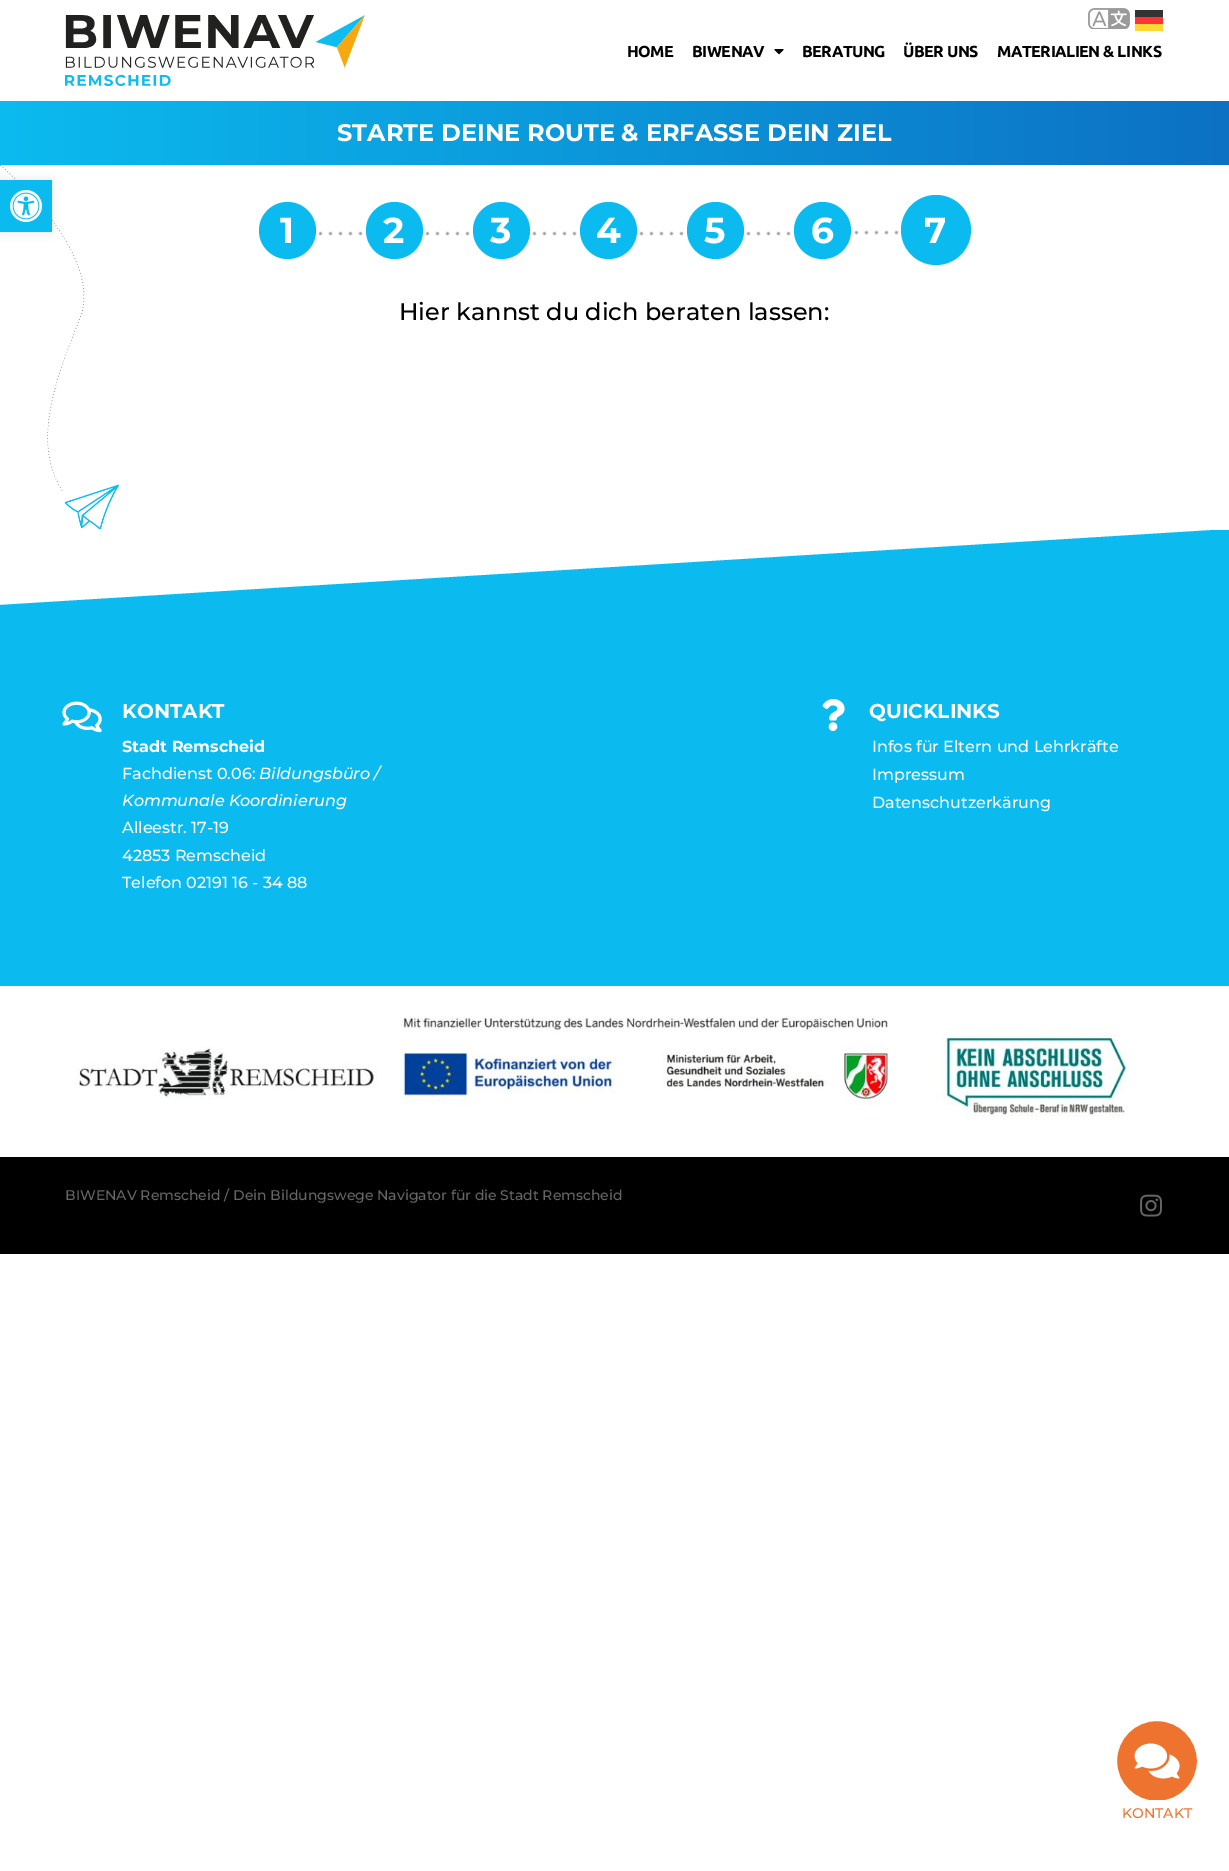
%!PS
<< /PageSize [1229 1871] /PageUsesTransparency true >> setpagedevice
/rgb { 3 { 255 div 3 1 roll } repeat setrgbcolor } def
/font { [ exch dup neg 0 0 3 -1 roll 0 0 ] selectfont } def
/alpha { dup .setfillconstantalpha .setstrokeconstantalpha } def
/circle { newpath 0 360 arc closepath } def
/roundrect { 5 dict begin { /r /h /w /y /x } { exch def } forall
  x r add y moveto x w add y 2 copy h add r arct x w add y h add x 1 index r arct
  x y h add x y r arct x y 2 copy exch w add exch r arct closepath end } def
/shadow { 12 dict begin { /a /b /q /h /w /y /x } { exch def } forall gsave /was 0 def
  9 -2 -9 { dup b mul 4 div /e exch def 1 sub .425 mul 2.718 exch exp 1 add a .99 .min exch div /now exch def
    1 1 now sub 1 was sub div sub alpha /was now def
    w h .min e 2 mul add 0 gt { x e sub y e sub w e 2 mul add h e 2 mul add
      q e add b .6 mul add w h .min 2 div e add .min 0 .max roundrect fill } if } for grestore end } def
/picture { 5 dict begin { /h /w /y /x /name } { exch def } forall
  gsave x y translate w h scale
  w h 8 [w 0 0 h 0 0] name (r) file false 3 colorimage grestore end } def
0 .pushpdf14devicefilter
0 1871 translate 1 -1 scale
4 setmiterlimit
255 255 255 rgb
0 0 1229 1871 rectfill
(img/1.rgb) 1088 8 42 21 picture
[
  [1135 10 28 7 51 51 51]
  [1135 17 28 7 255 51 51]
  [1135 24 28 7 255 214 51]
] { aload pop rgb rectfill } forall
(img/2.rgb) 65 15 300 71 picture
(img/3.rgb) 774 49 10 6 picture
gsave 0 101 moveto 1229 101 lineto 1229 165 lineto 0 165 lineto closepath clip newpath
<< /ShadingType 2 /ColorSpace /DeviceRGB /Coords [0 133 1229 133] /Extend [true true] /Function << /FunctionType 2 /Domain [0 1] /C0 [0.043 0.733 0.937] /C1 [0.047 0.443 0.765] /N 1 >> >> shfill grestore
(img/5.rgb) 0 165 119 364 picture
0 0 0 rgb
0 180 52 52 0 5 0.1 shadow
11 187 239 rgb
0 180 52 52 rectfill
(img/4.rgb) 10 190 32 32 picture
(img/6.rgb) 315 232 1 3 picture
(img/7.rgb) 315 232 1 3 picture
287.5 230.5 28.5 circle fill
(img/8.rgb) 318 231 105 5 picture
(img/7.rgb) 422 232 1 3 picture
394.5 230.5 28.5 circle fill
(img/8.rgb) 425 231 105 5 picture
(img/7.rgb) 529 232 1 3 picture
501.5 230.5 28.5 circle fill
(img/8.rgb) 532 231 105 5 picture
(img/7.rgb) 636 232 1 3 picture
608.5 230.5 28.5 circle fill
(img/8.rgb) 639 231 105 5 picture
(img/7.rgb) 743 232 1 3 picture
715.5 230.5 28.5 circle fill
(img/8.rgb) 746 231 105 5 picture
(img/7.rgb) 850 232 1 3 picture
822.5 230.5 28.5 circle fill
(img/9.rgb) 854 230 45 5 picture
936 230 35 circle fill
gsave
0 530 1229 80 rectclip
0 605 moveto 0 609 lineto 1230 609 lineto 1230 529 lineto closepath fill
grestore
0 609 1229 377 rectfill
(img/10.rgb) 62 701 40 32 picture
(img/11.rgb) 822 699 23 32 picture
(img/12.rgb) 76 1016 1051 101 picture
0 0 0 rgb
0 1157 1229 97 rectfill
238 115 46 rgb
1157 1761 41.5 circle gsave fill grestore
255 255 255 rgb
3 setlinewidth
stroke
(img/13.rgb) 1134 1743 46 36 picture
1114 1800 86 27 5 roundrect fill
(img/14.rgb) 1140 1194 22 23 picture
/Ubuntu-Bold 16 font
0 0 0 rgb
627 57 moveto -0.5 0 (HOME) ashow
692 57 moveto -0.5 0 (BIWENAV) ashow
802 57 moveto -0.5 0 (BERATUNG) ashow
903 57 moveto -0.5 0 (ÜBER UNS) ashow
997 57 moveto -0.5 0 (MATERIALIEN & LINKS) ashow
/Montserrat-Bold 24 font
255 255 255 rgb
337 141 moveto (STARTE DEINE ROUTE & ERFASSE DEIN ZIEL) show
/Montserrat-Bold 36 font
[
  [(1) 280 243]
  [(2) 383 243]
  [(3) 490 243]
  [(4) 596 243]
  [(5) 704 243]
  [(6) 811 243]
  [(7) 924 243]
] { aload pop moveto show } forall
/Montserrat-Medium 24 font
0 0 0 rgb
399 320 moveto (Hier kannst du dich beraten lassen:) show
/Montserrat-Bold 20 font
255 255 255 rgb
122 718 moveto (KONTAKT) show
/Montserrat-Bold 16 font
122 752 moveto (Stadt Remscheid) show
/Montserrat-Medium 16 font
122 779 moveto (Fachdienst 0.06:) show
/Montserrat-MediumItalic 16 font
259 779 moveto (Bildungsbüro /) show
122 806 moveto (Kommunale Koordinierung) show
/Montserrat-Medium 16 font
[
  [(Alleestr. 17-19) 122 833]
  [(42853 Remscheid) 122 861]
  [(Telefon 02191 16 - 34 88) 122 888]
] { aload pop moveto show } forall
/Montserrat-Bold 20 font
869 718 moveto (QUICKLINKS) show
/Montserrat-Medium 16 font
[
  [(Infos für Eltern und Lehrkräfte) 872 752]
  [(Impressum) 872 780]
  [(Datenschutzerkärung) 872 808]
] { aload pop moveto show } forall
/Montserrat-Medium 14 font
102 102 102 rgb
65 1200 moveto (BIWENAV Remscheid / Dein Bildungswege Navigator für die Stadt Remscheid) show
238 115 46 rgb
1122 1818 moveto (KONTAKT) show
.poppdf14devicefilter showpage
